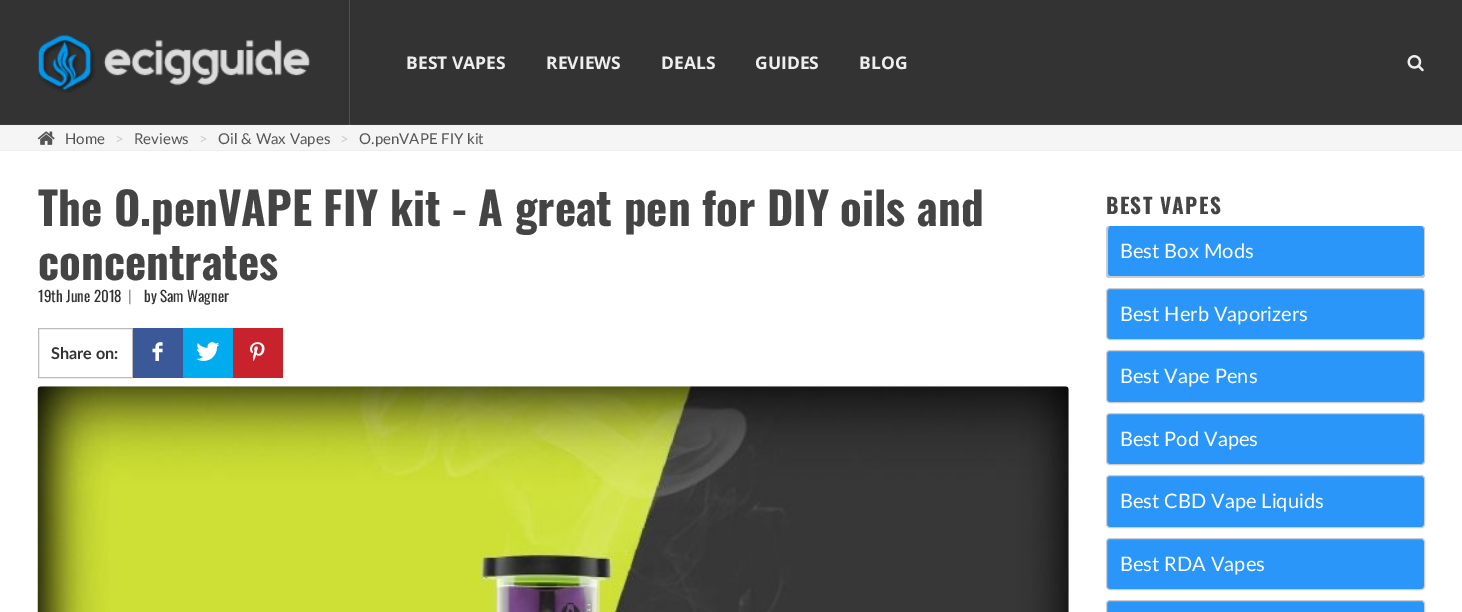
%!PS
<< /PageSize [1462 612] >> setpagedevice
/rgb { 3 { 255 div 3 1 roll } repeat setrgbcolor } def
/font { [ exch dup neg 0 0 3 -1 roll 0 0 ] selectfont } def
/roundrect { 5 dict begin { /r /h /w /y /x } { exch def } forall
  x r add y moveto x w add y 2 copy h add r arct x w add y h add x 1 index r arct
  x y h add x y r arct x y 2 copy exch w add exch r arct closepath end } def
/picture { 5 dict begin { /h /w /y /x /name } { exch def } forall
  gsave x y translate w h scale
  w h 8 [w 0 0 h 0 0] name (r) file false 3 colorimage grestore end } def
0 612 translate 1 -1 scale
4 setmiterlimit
255 255 255 rgb
0 0 1462 612 rectfill
[
  [0 0 1462 124 51 51 51]
  [349 0 1 125 82 82 82]
  [0 124 1462 1 61 61 61]
  [349 124 1 1 90 90 90]
] { aload pop rgb rectfill } forall
(img/1.rgb) 38 34 273 59 picture
(img/2.rgb) 1407 55 17 17 picture
245 245 245 rgb
0 125 1462 25 rectfill
238 238 238 rgb
0 150 1462 1 rectfill
(img/3.rgb) 37 131 18 14 picture
187 187 187 rgb
38.5 328.5 94 49 rectstroke
59 89 152 rgb
133 328 50 50 rectfill
(img/4.rgb) 152 342 11 19 picture
0 172 238 rgb
183 328 50 50 rectfill
(img/5.rgb) 196 342 24 19 picture
200 35 44 rgb
233 328 50 50 rectfill
(img/6.rgb) 250 342 15 19 picture
(img/7.rgb) 37 386 1032 226 picture
42 150 250 rgb
1106 226 319 52 4 roundrect fill
204 204 204 rgb
1110 226 moveto 1421 226 lineto 1423 226 1425 228 1425 230 curveto 1425 274 lineto 1425 276 1423 278 1421 278 curveto 1110 278 lineto 1108 278 1106 276 1106 274 curveto 1106 230 lineto 1106 228 1108 226 1110 226 curveto closepath 1110 226 moveto 1421 226 lineto 1423 226 1424 228 1424 230 curveto 1424 274 lineto 1424 275 1423 276 1421 276 curveto 1110 276 lineto 1109 276 1108 275 1108 274 curveto 1108 230 lineto 1108 228 1109 226 1110 226 curveto closepath eofill
42 150 250 rgb
1106.5 288.5 318 51 3.5 roundrect gsave fill grestore
204 204 204 rgb
stroke
42 150 250 rgb
1106.5 350.5 318 52 3.5 roundrect gsave fill grestore
204 204 204 rgb
stroke
42 150 250 rgb
1106.5 413.5 318 51 3.5 roundrect gsave fill grestore
204 204 204 rgb
stroke
42 150 250 rgb
1106.5 475.5 318 52 3.5 roundrect gsave fill grestore
204 204 204 rgb
stroke
42 150 250 rgb
1106.5 538.5 318 51 3.5 roundrect gsave fill grestore
204 204 204 rgb
stroke
42 150 250 rgb
1106.5 600.5 318 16 3.5 roundrect gsave fill grestore
204 204 204 rgb
stroke
/OpenSans-Bold 17.5 font
238 238 238 rgb
[
  [(BEST VAPES) 406 69]
  [(REVIEWS) 546 69]
  [(DEALS) 661 69]
  [(GUIDES) 755 69]
  [(BLOG) 859 69]
] { aload pop moveto show } forall
/Lato-Regular 15 font
85 85 85 rgb
65 144 moveto (Home) show
204 204 204 rgb
115 144 moveto (>) show
85 85 85 rgb
134 144 moveto (Reviews) show
204 204 204 rgb
199 144 moveto (>) show
85 85 85 rgb
218 144 moveto (Oil & Wax Vapes) show
204 204 204 rgb
340 144 moveto (>) show
85 85 85 rgb
359 144 moveto (O.penVAPE FIY kit) show
/Oswald-Bold 45 font
68 68 68 rgb
38 226 moveto (The O.penVAPE FIY kit - A great pen for DIY oils and) show
38 280 moveto (concentrates) show
/Oswald-Regular 15 font
51 51 51 rgb
38 302 moveto (19th June 2018) show
153 153 153 rgb
128 302 moveto (|) show
51 51 51 rgb
144 302 moveto (by Sam Wagner) show
/Lato-Bold 16.25 font
51 359 moveto (Share on:) show
/Oswald-Bold 21.25 font
68 68 68 rgb
1106 214 moveto 1.25 0 (BEST VAPES) ashow
/Lato-Regular 20 font
255 255 255 rgb
[
  [(Best Box Mods) 1120 258]
  [(Best Herb Vaporizers) 1120 321]
  [(Best Vape Pens) 1120 383]
  [(Best Pod Vapes) 1120 446]
  [(Best CBD Vape Liquids) 1120 508]
  [(Best RDA Vapes) 1120 571]
] { aload pop moveto show } forall
showpage
